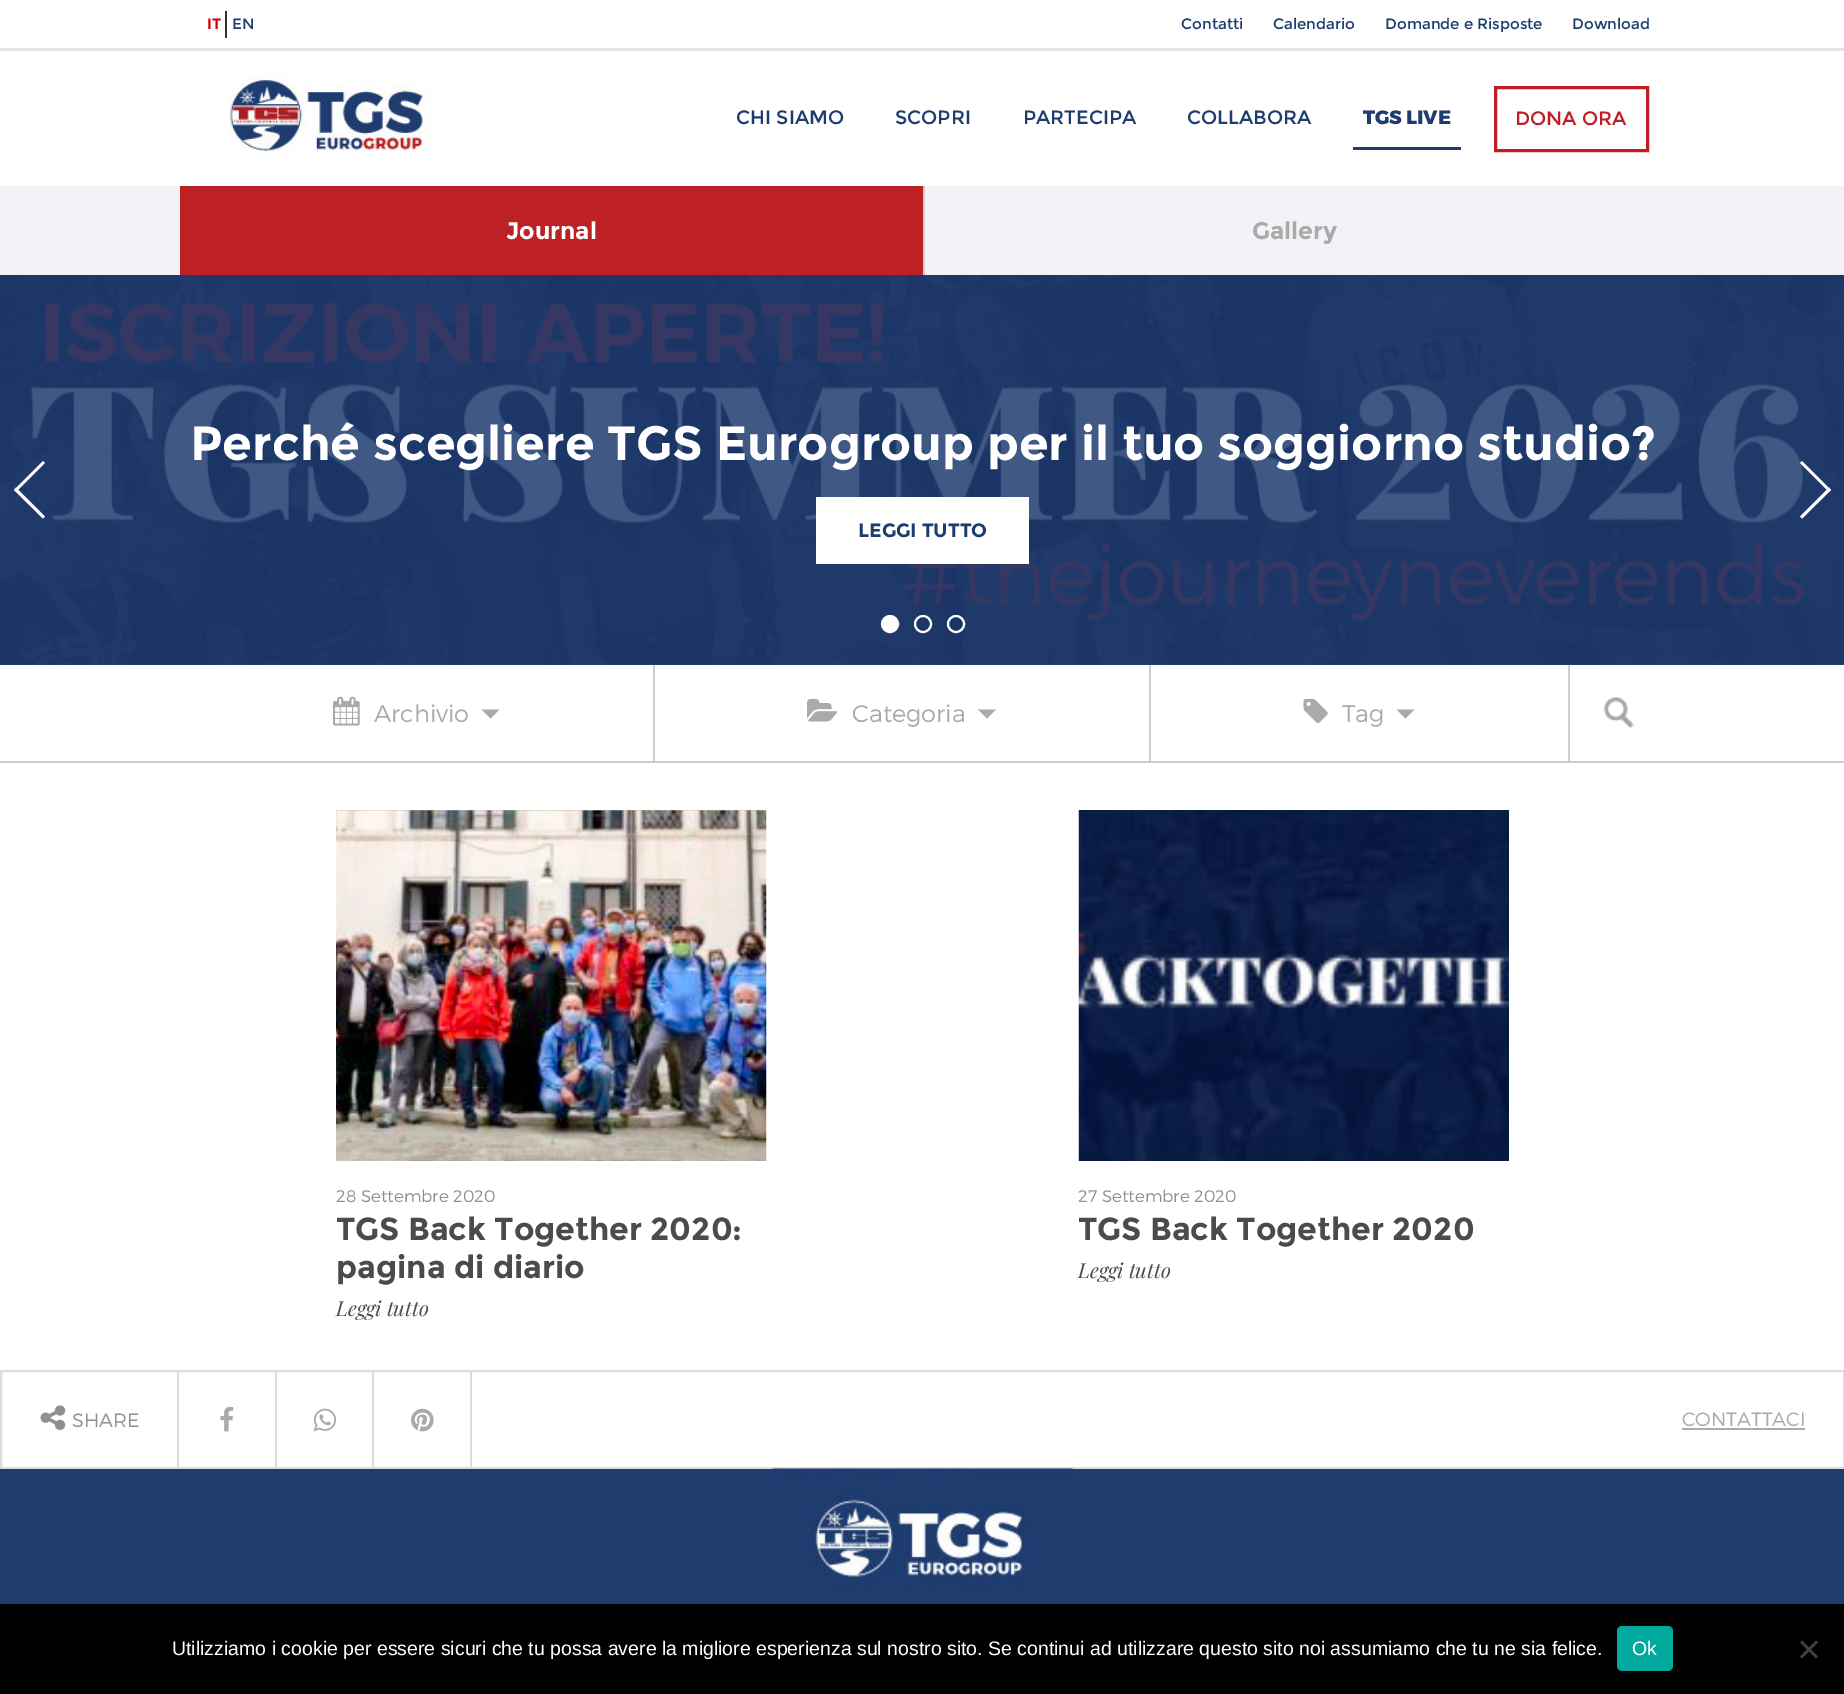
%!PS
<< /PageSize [1844 1694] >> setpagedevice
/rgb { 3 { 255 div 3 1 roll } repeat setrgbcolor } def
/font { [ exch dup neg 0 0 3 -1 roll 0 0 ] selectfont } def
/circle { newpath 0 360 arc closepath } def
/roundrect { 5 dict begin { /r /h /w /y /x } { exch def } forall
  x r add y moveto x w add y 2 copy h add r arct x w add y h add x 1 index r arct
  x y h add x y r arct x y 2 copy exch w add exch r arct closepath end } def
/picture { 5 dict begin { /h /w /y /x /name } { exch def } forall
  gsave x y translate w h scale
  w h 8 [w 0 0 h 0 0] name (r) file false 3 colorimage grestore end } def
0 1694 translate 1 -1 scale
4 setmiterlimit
255 255 255 rgb
0 0 1844 1694 rectfill
228 228 228 rgb
0 48 1844 3 rectfill
51 51 51 rgb
225 11 2 27 rectfill
(img/1.rgb) 229 74 202 78 picture
30 60 110 rgb
1353 147 108 3 rectfill
191 30 38 rgb
3 setlinewidth
1495.5 87.5 152 63 rectstroke
[
  [0 186 1844 89 243 242 247]
  [180 186 743 89 189 33 37]
  [923 186 2 89 204 204 204]
] { aload pop rgb rectfill } forall
(img/2.rgb) 0 275 1844 390 picture
255 255 253 rgb
816 497 213 67 rectfill
255 255 255 rgb
14 490 moveto 43 461 lineto 45 463 lineto 16 492 lineto closepath fill
14 490 moveto 16 487.5 lineto 45 516.5 lineto 43 518.5 lineto closepath fill
1800 463 moveto 1802 461 lineto 1831 490 lineto 1829 492 lineto closepath fill
1800 516.5 moveto 1829 487.5 lineto 1831 490 lineto 1802 518.5 lineto closepath fill
890 624 8 circle gsave fill grestore
2 setlinewidth
stroke
923 624 8 circle stroke
956 624 8 circle stroke
204 204 204 rgb
0 761 1844 2 rectfill
653 665 2 96 rectfill
(img/3.rgb) 333 696 27 30 picture
170 170 170 rgb
481.5 709.5 moveto 499.5 709.5 lineto 490.5 718.5 lineto closepath fill
204 204 204 rgb
1149 665 2 96 rectfill
(img/4.rgb) 807 698 31 24 picture
170 170 170 rgb
978 709.5 moveto 996 709.5 lineto 987 718.5 lineto closepath fill
204 204 204 rgb
1568 665 2 96 rectfill
(img/5.rgb) 1303 698 25 26 picture
170 170 170 rgb
1396.5 709.5 moveto 1414.5 709.5 lineto 1405.5 718.5 lineto closepath fill
(img/6.rgb) 1603 697 31 31 picture
(img/7.rgb) 336 810 431 351 picture
(img/8.rgb) 1078 810 431 351 picture
221 221 221 rgb
1 1371 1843 97 rectstroke
177 1371 2 96 rectfill
(img/9.rgb) 40 1405 26 25 picture
275 1371 2 96 rectfill
(img/10.rgb) 220 1406 14 26 picture
372 1371 2 96 rectfill
(img/11.rgb) 313 1408 24 24 picture
470 1371 2 96 rectfill
(img/12.rgb) 411 1408 23 24 picture
170 170 170 rgb
1682 1428 123 2 rectfill
30 60 110 rgb
0 1469 1844 135 rectfill
(img/13.rgb) 772 1468 301 120 picture
0 0 0 rgb
0 1604 1844 90 rectfill
0 169 157 rgb
1617 1626 56 45 5 roundrect fill
64 64 64 rgb
1816 1640.5 moveto 1818 1642.5 lineto 1802 1658.5 lineto 1800 1656.5 lineto closepath fill
1800 1642.5 moveto 1802 1640.5 lineto 1818 1656.5 lineto 1816 1658.5 lineto closepath fill
/Montserrat-Bold 15 font
208 0 0 rgb
207 29 moveto (IT) show
/Montserrat-Regular 15 font
30 60 110 rgb
[
  [(EN) 232 29]
  [(Contatti) 1181 29]
  [(Calendario) 1273 29]
  [(Domande e Risposte) 1385 29]
  [(Download) 1572 29]
] { aload pop moveto show } forall
/Montserrat-Regular 19.25 font
[
  [(CHI SIAMO) 736 124]
  [(SCOPRI) 895 124]
  [(PARTECIPA) 1023 124]
  [(COLLABORA) 1187 124]
] { aload pop moveto show } forall
/Montserrat-ExtraBold 19.25 font
1363 124 moveto (TGS LIVE) show
/Montserrat-Regular 19.25 font
191 30 38 rgb
1515 125 moveto (DONA ORA) show
/Montserrat-Bold 24 font
255 255 255 rgb
506 239 moveto (Journal) show
170 170 170 rgb
1252 239 moveto (Gallery) show
/Montserrat-Bold 48 font
255 255 255 rgb
190 460 moveto (Perché scegliere TGS Eurogroup per il tuo soggiorno studio?) show
/Montserrat-Bold 19.25 font
30 60 110 rgb
858 537 moveto (LEGGI TUTTO) show
/Montserrat-Light 24 font
170 170 170 rgb
[
  [(Archivio) 374 722]
  [(Categoria) 852 722]
  [(Tag) 1342 722]
] { aload pop moveto show } forall
/Montserrat-Light 16.75 font
144 144 144 rgb
336 1202 moveto (28 Settembre 2020) show
/Montserrat-Bold 31.75 font
75 75 75 rgb
336 1240 moveto (TGS Back Together 2020:) show
336 1278 moveto (pagina di diario) show
/PlayfairDisplay-Italic 20.5 font
336 1316 moveto (Leggi tutto) show
/Montserrat-Light 16.75 font
144 144 144 rgb
1078 1202 moveto (27 Settembre 2020) show
/Montserrat-Bold 31.75 font
75 75 75 rgb
1078 1240 moveto (TGS Back Together 2020) show
/PlayfairDisplay-Italic 20.5 font
1078 1278 moveto (Leggi tutto) show
/Montserrat-Light 19.25 font
144 144 144 rgb
72 1427 moveto (SHARE) show
170 170 170 rgb
1682 1426 moveto (CONTATTACI) show
/LiberationSans-Regular 19.5 font
255 255 255 rgb
172 1655 moveto (Utilizziamo i cookie per essere sicuri che tu possa avere la migliore esperienza sul nostro sito. Se continui ad utilizzare questo sito noi assumiamo che tu ne sia felice.) show
1632 1655 moveto (Ok) show
showpage
